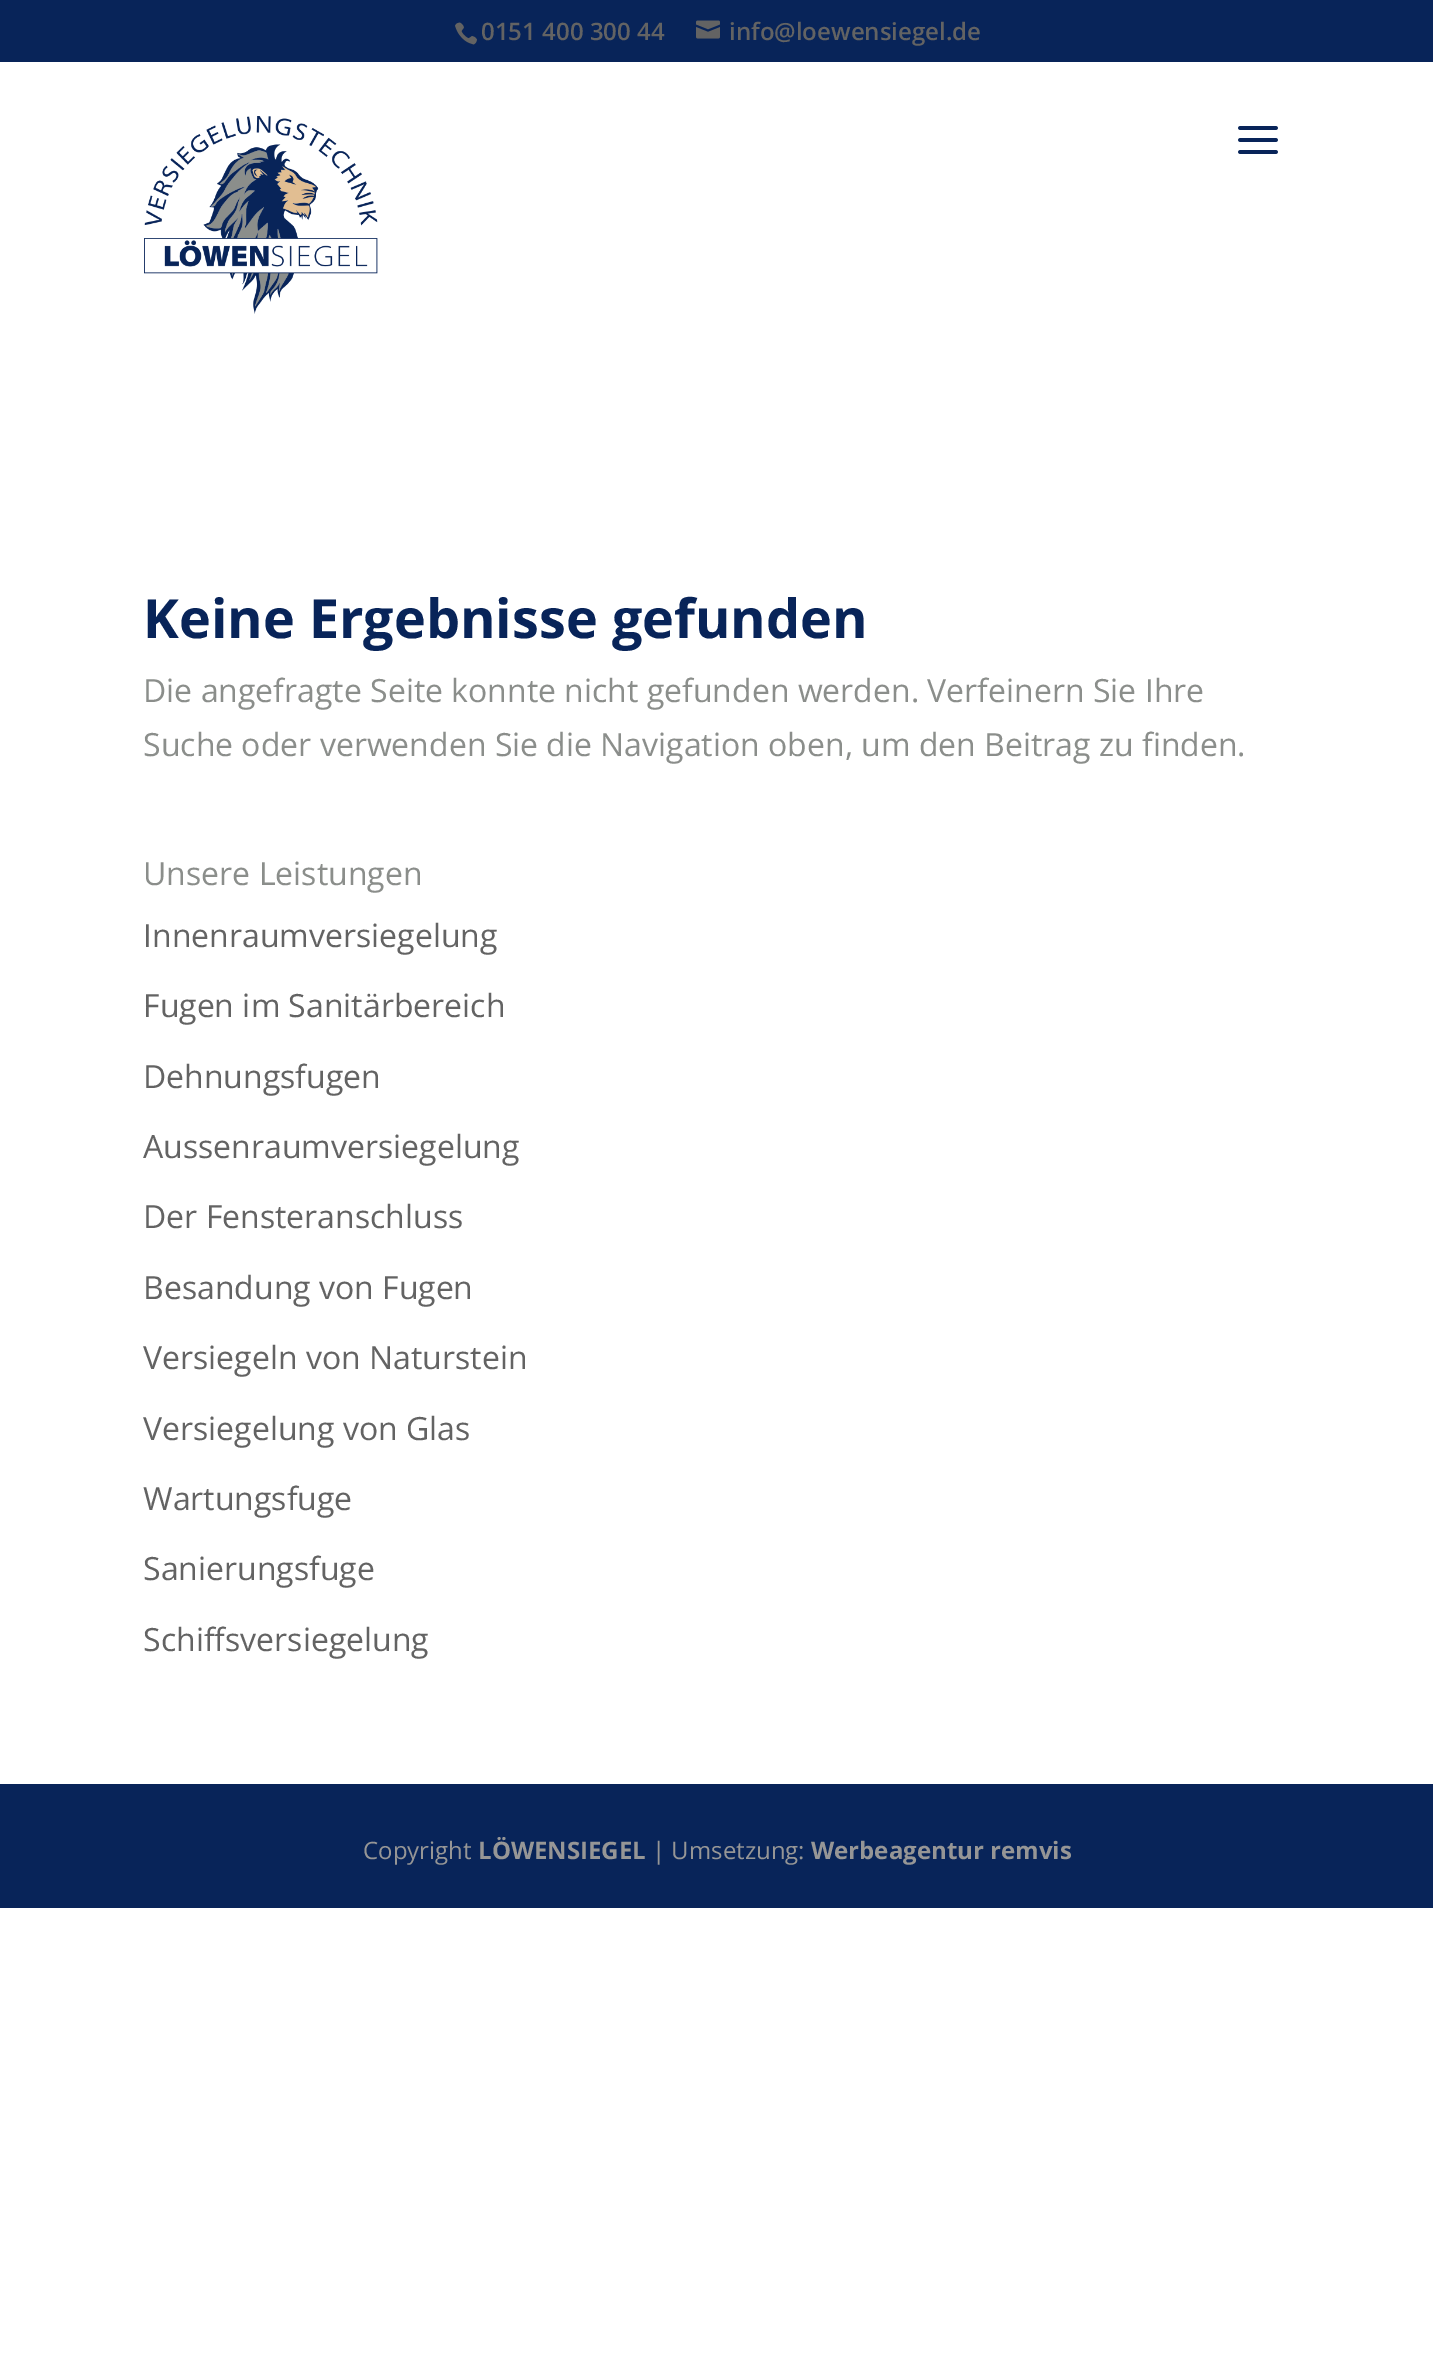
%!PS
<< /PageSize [1433 2369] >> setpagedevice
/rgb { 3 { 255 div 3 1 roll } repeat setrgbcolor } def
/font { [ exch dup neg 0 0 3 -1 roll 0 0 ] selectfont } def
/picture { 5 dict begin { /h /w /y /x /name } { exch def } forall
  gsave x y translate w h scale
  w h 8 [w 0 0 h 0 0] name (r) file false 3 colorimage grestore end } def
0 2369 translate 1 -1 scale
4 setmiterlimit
255 255 255 rgb
0 0 1433 2369 rectfill
8 36 89 rgb
0 0 1433 62 rectfill
(img/1.rgb) 455 22 22 23 picture
(img/2.rgb) 696 20 24 19 picture
(img/3.rgb) 144 116 234 198 picture
(img/4.rgb) 1238 126 40 28 picture
0 1784 1433 124 rectfill
/OpenSans-SemiBold 24 font
99 99 99 rgb
481 40 moveto (0151 400 300 44) show
729 40 moveto (info@loewensiegel.de) show
/OpenSans-Bold 54 font
8 36 89 rgb
143 638 moveto (Keine Ergebnisse gefunden) show
/OpenSans-Regular 32 font
139 142 139 rgb
[
  [(Die angefragte Seite konnte nicht gefunden werden. Verfeinern Sie Ihre) 143 702]
  [(Suche oder verwenden Sie die Navigation oben, um den Beitrag zu finden.) 143 756]
  [(Unsere Leistungen) 143 885]
] { aload pop moveto show } forall
99 99 99 rgb
[
  [(Innenraumversiegelung) 143 947]
  [(Fugen im Sanitärbereich) 143 1017]
  [(Dehnungsfugen) 143 1088]
  [(Aussenraumversiegelung) 143 1158]
  [(Der Fensteranschluss) 143 1228]
  [(Besandung von Fugen) 143 1299]
  [(Versiegeln von Naturstein) 143 1369]
  [(Versiegelung von Glas) 143 1440]
  [(Wartungsfuge) 143 1510]
  [(Sanierungsfuge) 143 1580]
  [(Schiffsversiegelung) 143 1651]
] { aload pop moveto show } forall
/OpenSans-Regular 24 font
150 150 150 rgb
363 1859 moveto (Copyright) show
/OpenSans-Bold 24 font
478 1859 moveto (LÖWENSIEGEL) show
/OpenSans-Regular 24 font
652 1859 moveto (| Umsetzung:) show
/OpenSans-Bold 24 font
811 1859 moveto (Werbeagentur remvis) show
showpage
